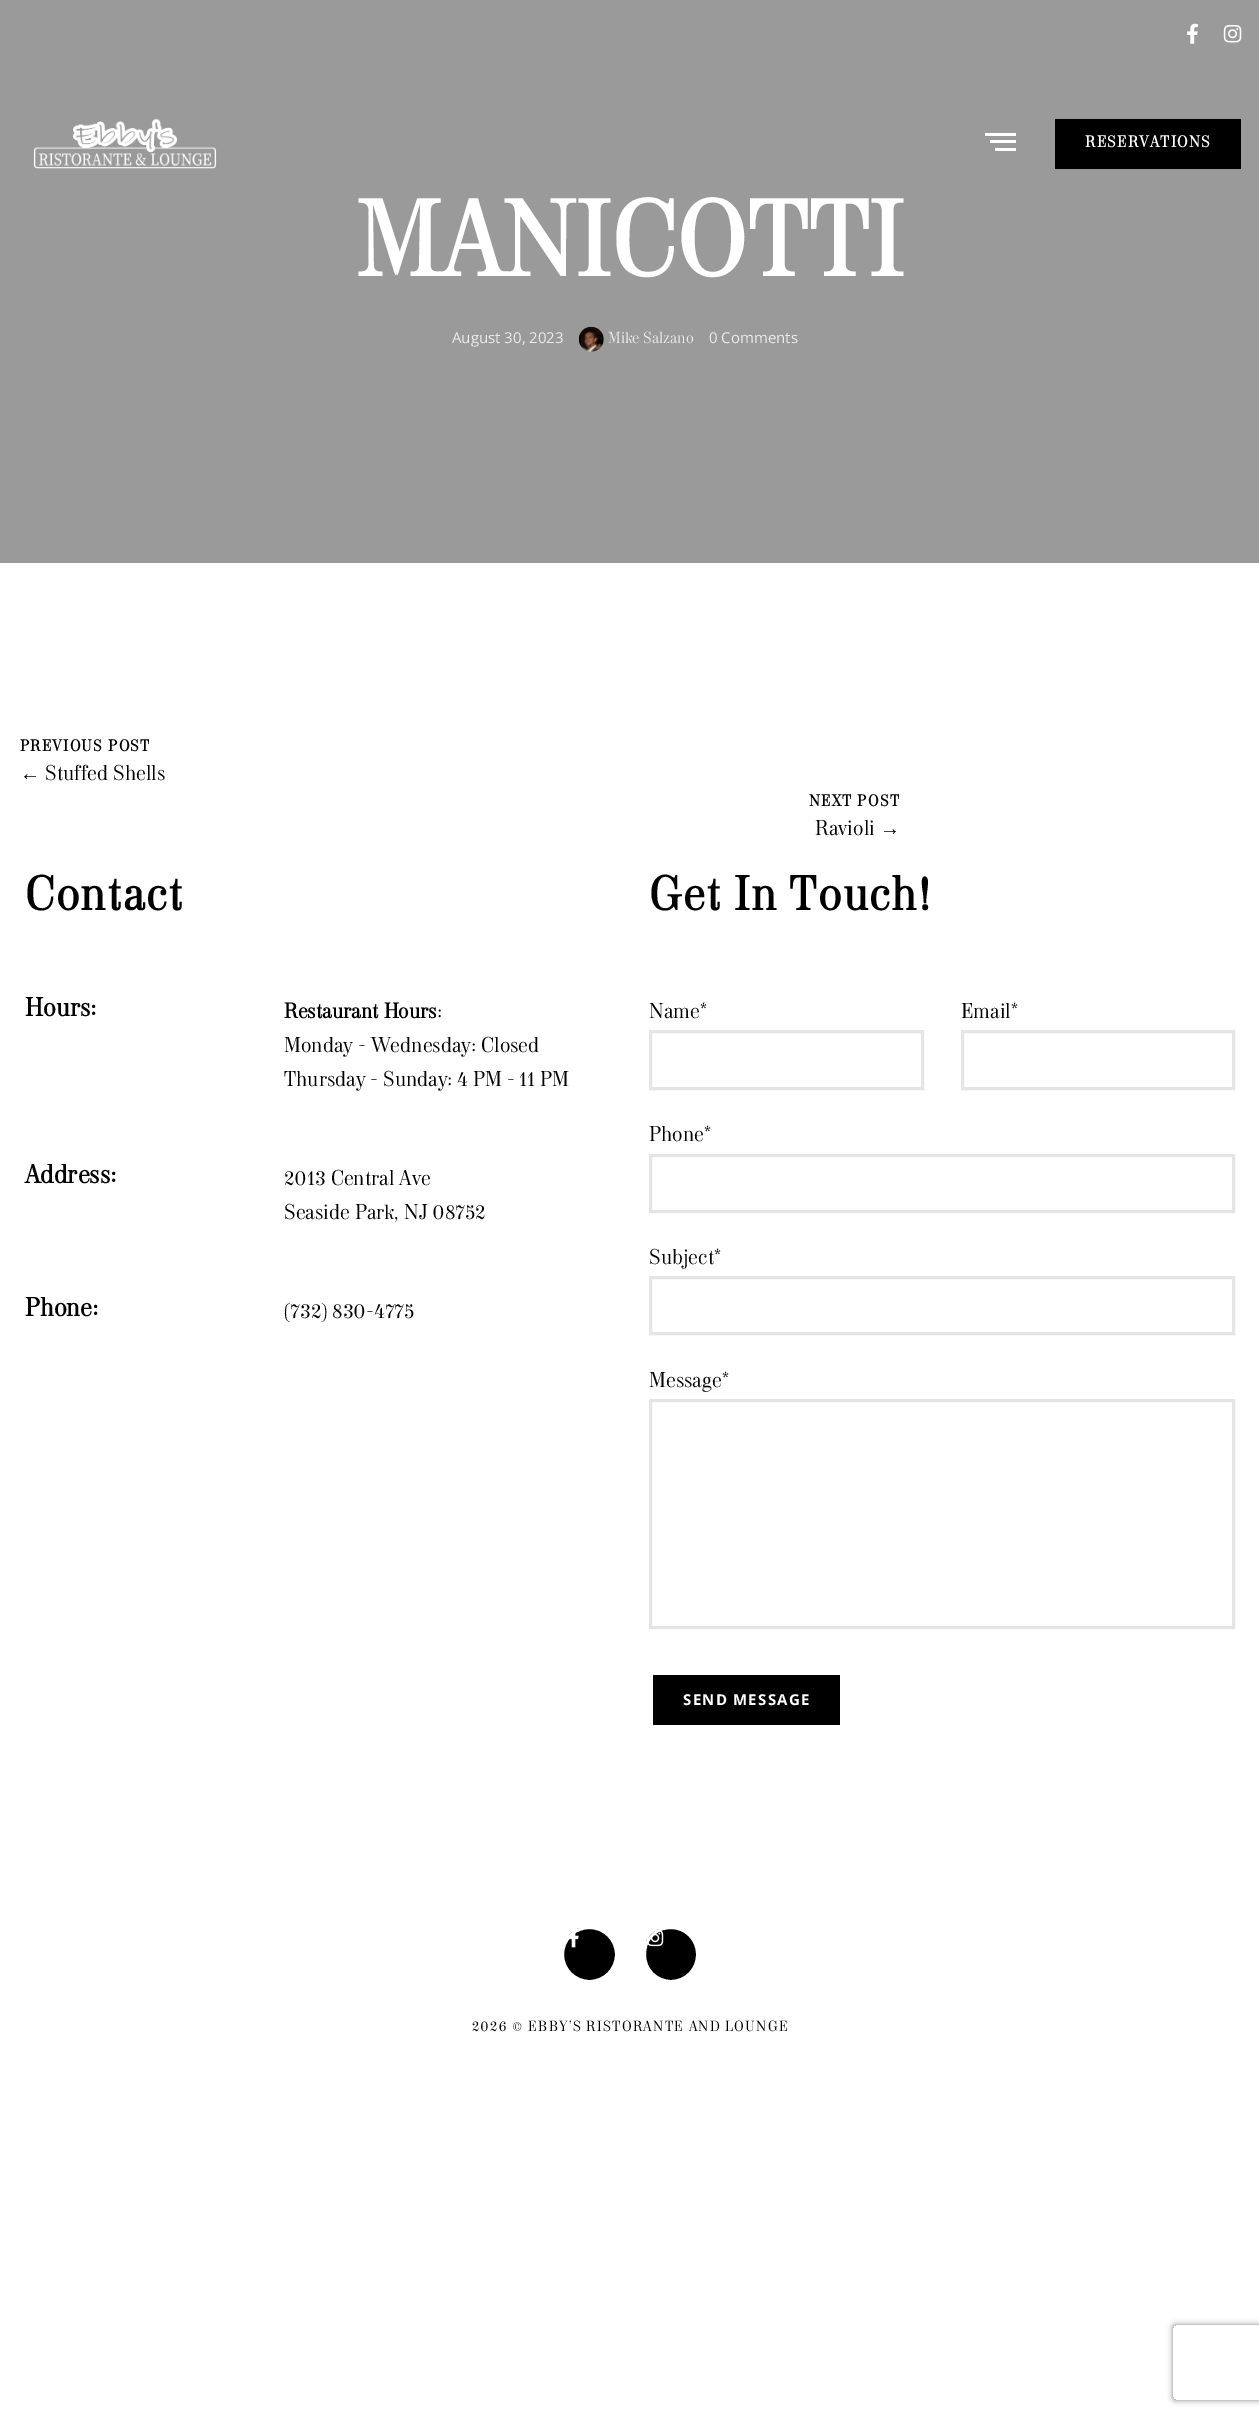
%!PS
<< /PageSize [1259 2417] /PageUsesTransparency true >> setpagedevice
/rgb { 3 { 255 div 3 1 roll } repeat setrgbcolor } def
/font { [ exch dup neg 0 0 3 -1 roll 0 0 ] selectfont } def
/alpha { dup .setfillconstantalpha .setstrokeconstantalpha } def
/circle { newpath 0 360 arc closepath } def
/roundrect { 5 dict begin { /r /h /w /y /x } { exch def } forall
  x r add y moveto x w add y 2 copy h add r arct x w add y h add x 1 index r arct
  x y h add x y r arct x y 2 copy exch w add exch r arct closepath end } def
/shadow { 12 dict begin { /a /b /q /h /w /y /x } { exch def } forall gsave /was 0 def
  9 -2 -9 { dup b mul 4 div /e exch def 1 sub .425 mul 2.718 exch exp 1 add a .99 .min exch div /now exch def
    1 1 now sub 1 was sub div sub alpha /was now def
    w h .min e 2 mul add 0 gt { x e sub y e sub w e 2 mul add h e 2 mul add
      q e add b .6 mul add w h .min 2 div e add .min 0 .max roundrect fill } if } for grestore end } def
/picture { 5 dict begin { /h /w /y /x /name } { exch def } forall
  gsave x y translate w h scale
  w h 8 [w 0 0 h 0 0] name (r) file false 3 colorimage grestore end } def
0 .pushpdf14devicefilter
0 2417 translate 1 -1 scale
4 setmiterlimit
255 255 255 rgb
0 0 1259 2417 rectfill
154 154 154 rgb
0 0 1259 563 rectfill
(img/1.rgb) 1187 23 11 21 picture
(img/2.rgb) 1223 25 19 18 picture
(img/3.rgb) 33 118 184 51 picture
[
  [985 133 31 3 255 255 255]
  [990 140 26 3 255 255 255]
  [995 148 21 3 255 255 255]
  [1055 119 186 50 0 0 0]
] { aload pop rgb rectfill } forall
(img/4.rgb) 578 326 26 26 picture
229 229 229 rgb
3 setlinewidth
650.5 1031.5 272 57 rectstroke
962.5 1031.5 271 57 rectstroke
650.5 1155.5 583 56 rectstroke
650.5 1277.5 583 56 rectstroke
650.5 1400.5 583 227 rectstroke
0 0 0 rgb
653 1675 187 50 rectfill
589.5 1954.5 27 circle gsave fill grestore
255 255 255 rgb
stroke
(img/5.rgb) 569 1928 10 20 picture
0 0 0 rgb
644.5 1927.5 53 54 26.5 roundrect gsave fill grestore
255 255 255 rgb
stroke
(img/6.rgb) 646 1929 18 18 picture
gsave
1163 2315 moveto 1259 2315 lineto 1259 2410 lineto 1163 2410 lineto closepath 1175.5 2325 moveto 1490.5 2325 lineto 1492 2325 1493 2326 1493 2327.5 curveto 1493 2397.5 lineto 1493 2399 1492 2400 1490.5 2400 curveto 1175.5 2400 lineto 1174 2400 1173 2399 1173 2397.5 curveto 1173 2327.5 lineto 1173 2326 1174 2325 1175.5 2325 curveto closepath eoclip newpath
128 128 128 rgb
1173 2325 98 75 2.5 3 1 shadow
grestore
/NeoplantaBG-Bold 15 font
1085 147 moveto 1.25 0 (RESERVATIONS) ashow
/NeoplantaBG-Bold 100 font
356 276 moveto (MANICOTTI) show
/OpenSans-Regular 15 font
235 235 235 rgb
452 343 moveto (August 30, 2023) show
/NeoplantaBG-Regular 15 font
608 343 moveto (Mike Salzano) show
/OpenSans-Regular 15 font
709 343 moveto (0 Comments) show
/NeoplantaBG-Bold 15 font
0 0 0 rgb
20 751 moveto 1.25 0 (PREVIOUS POST) ashow
/LiberationSans-Regular 20 font
20 780 moveto (←) show
/NeoplantaBG-Regular 20 font
45 780 moveto (Stuffed Shells) show
/NeoplantaBG-Bold 15 font
809 806 moveto 1.25 0 (NEXT POST) ashow
/NeoplantaBG-Regular 20 font
815 835 moveto (Ravioli) show
/LiberationSans-Regular 20 font
880 835 moveto (→) show
/NeoplantaBG-Bold 45 font
25 910 moveto 1.25 0 (Contact) ashow
/NeoplantaBG-Bold 24.5 font
25 1016 moveto (Hours:) show
/NeoplantaBG-Bold 20 font
284 1018 moveto (Restaurant Hours) show
/NeoplantaBG-Regular 20 font
[
  [(:) 437 1018]
  [(Monday - Wednesday: Closed) 284 1052]
  [(Thursday - Sunday: 4 PM - 11 PM) 284 1086]
] { aload pop moveto show } forall
/NeoplantaBG-Bold 24.5 font
25 1183 moveto (Address:) show
/NeoplantaBG-Regular 20 font
284 1185 moveto (2013 Central Ave) show
284 1219 moveto (Seaside Park, NJ 08752) show
/NeoplantaBG-Bold 24.5 font
25 1316 moveto (Phone:) show
/NeoplantaBG-Regular 20 font
284 1318 moveto (\(732\) 830-4775) show
/NeoplantaBG-Bold 45 font
649 910 moveto 1.25 0 (Get In Touch!) ashow
/NeoplantaBG-Regular 20 font
[
  [(Name*) 649 1018]
  [(Email*) 961 1018]
  [(Phone*) 649 1141]
  [(Subject*) 649 1264]
  [(Message*) 649 1387]
] { aload pop moveto show } forall
/OpenSans-Bold 15 font
255 255 255 rgb
683 1705 moveto 1.25 0 (SEND MESSAGE) ashow
/NeoplantaBG-Regular 13.75 font
0 0 0 rgb
472 2031 moveto 1.25 0 (2026 © EBBY’S RISTORANTE AND LOUNGE) ashow
.poppdf14devicefilter showpage
